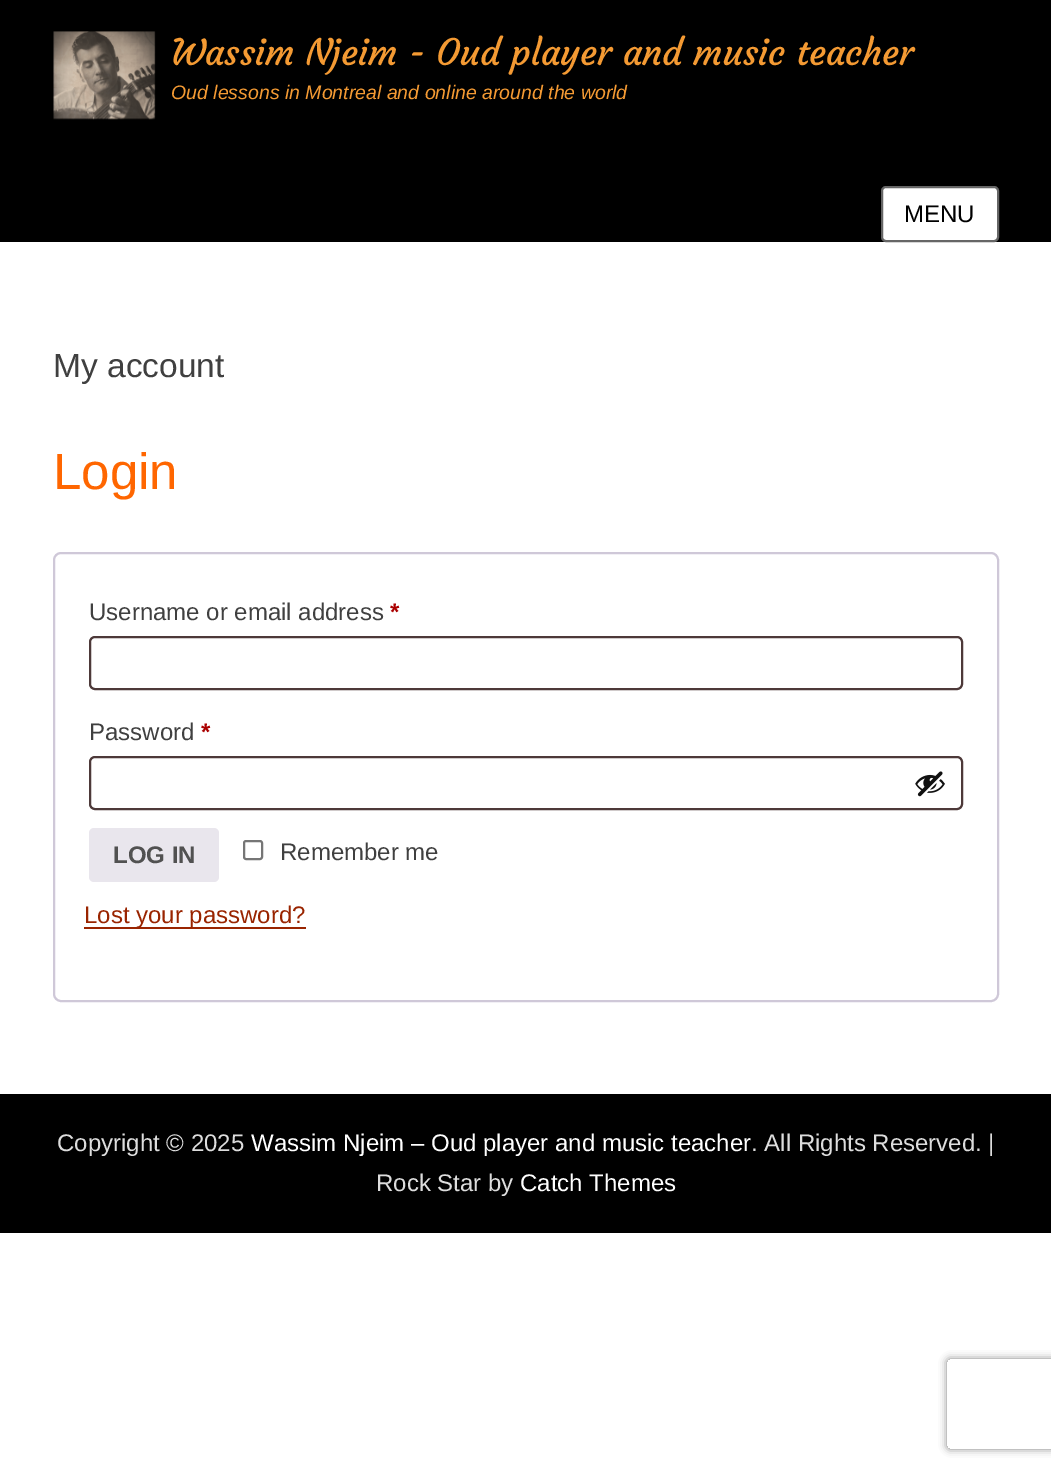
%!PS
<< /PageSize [1051 1470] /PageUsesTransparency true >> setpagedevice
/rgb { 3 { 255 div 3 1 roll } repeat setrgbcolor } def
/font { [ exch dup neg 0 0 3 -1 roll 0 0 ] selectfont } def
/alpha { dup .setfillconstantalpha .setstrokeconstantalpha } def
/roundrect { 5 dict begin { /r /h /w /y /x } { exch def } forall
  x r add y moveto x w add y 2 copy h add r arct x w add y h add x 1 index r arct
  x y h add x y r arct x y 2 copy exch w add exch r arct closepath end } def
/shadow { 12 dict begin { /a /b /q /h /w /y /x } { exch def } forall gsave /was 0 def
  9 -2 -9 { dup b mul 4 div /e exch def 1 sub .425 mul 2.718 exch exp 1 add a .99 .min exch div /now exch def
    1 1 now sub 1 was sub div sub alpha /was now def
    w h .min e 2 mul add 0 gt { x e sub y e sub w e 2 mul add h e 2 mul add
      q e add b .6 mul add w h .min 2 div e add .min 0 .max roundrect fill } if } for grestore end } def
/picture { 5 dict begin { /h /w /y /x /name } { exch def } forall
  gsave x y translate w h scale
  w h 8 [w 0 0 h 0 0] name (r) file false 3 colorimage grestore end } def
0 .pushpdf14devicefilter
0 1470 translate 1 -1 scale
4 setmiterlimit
255 255 255 rgb
0 0 1051 1470 rectfill
0 0 0 rgb
0 0 1051 242 rectfill
(img/1.rgb) 53 31 103 89 picture
255 255 255 rgb
882 187 116 54 4 roundrect gsave fill grestore
102 102 102 rgb
2 setlinewidth
stroke
207 200 216 rgb
54 553 944 448 7 roundrect stroke
77 57 57 rgb
90 637 872 52 5 roundrect stroke
90 757 872 52 5 roundrect stroke
(img/2.rgb) 915 771 30 26 picture
233 230 237 rgb
89 828 130 54 5 roundrect fill
118 118 118 rgb
244 841 18 18 2 roundrect stroke
153 36 0 rgb
84 927 222 2 rectfill
0 0 0 rgb
0 1094 1051 139 rectfill
gsave
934 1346 moveto 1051 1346 lineto 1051 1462 lineto 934 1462 lineto closepath 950 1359 moveto 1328 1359 lineto 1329.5 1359 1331 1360.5 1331 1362 curveto 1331 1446 lineto 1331 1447.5 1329.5 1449 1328 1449 curveto 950 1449 lineto 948.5 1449 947 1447.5 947 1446 curveto 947 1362 lineto 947 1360.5 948.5 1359 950 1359 curveto closepath eoclip newpath
128 128 128 rgb
947 1359 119 90 3 4 1 shadow
grestore
/Courgette-Regular 36 font
244 154 51 rgb
171 65 moveto (Wassim Njeim - Oud player and music teacher) show
/LiberationSans-Italic 19.5 font
171 99 moveto (Oud lessons in Montreal and online around the world) show
/LiberationSans-Regular 24 font
0 0 0 rgb
904 222 moveto (MENU) show
/LiberationSans-Regular 33.5 font
64 64 64 rgb
53 377 moveto (My account) show
/LiberationSans-Regular 51 font
255 102 0 rgb
53 489 moveto (Login) show
/LiberationSans-Regular 24 font
64 64 64 rgb
89 620 moveto (Username or email address) show
/LiberationSans-Bold 24 font
170 0 0 rgb
390 620 moveto (*) show
/LiberationSans-Regular 24 font
64 64 64 rgb
89 740 moveto (Password) show
/LiberationSans-Bold 24 font
170 0 0 rgb
201 740 moveto (*) show
81 81 81 rgb
113 863 moveto (LOG IN) show
/LiberationSans-Regular 24 font
64 64 64 rgb
280 860 moveto (Remember me) show
153 36 0 rgb
84 923 moveto (Lost your password?) show
221 221 221 rgb
57 1151 moveto (Copyright © 2025) show
255 255 255 rgb
251 1151 moveto (Wassim Njeim – Oud player and music teacher) show
221 221 221 rgb
751 1151 moveto (. All Rights Reserved. |) show
376 1191 moveto (Rock Star by) show
255 255 255 rgb
520 1191 moveto (Catch Themes) show
.poppdf14devicefilter showpage
